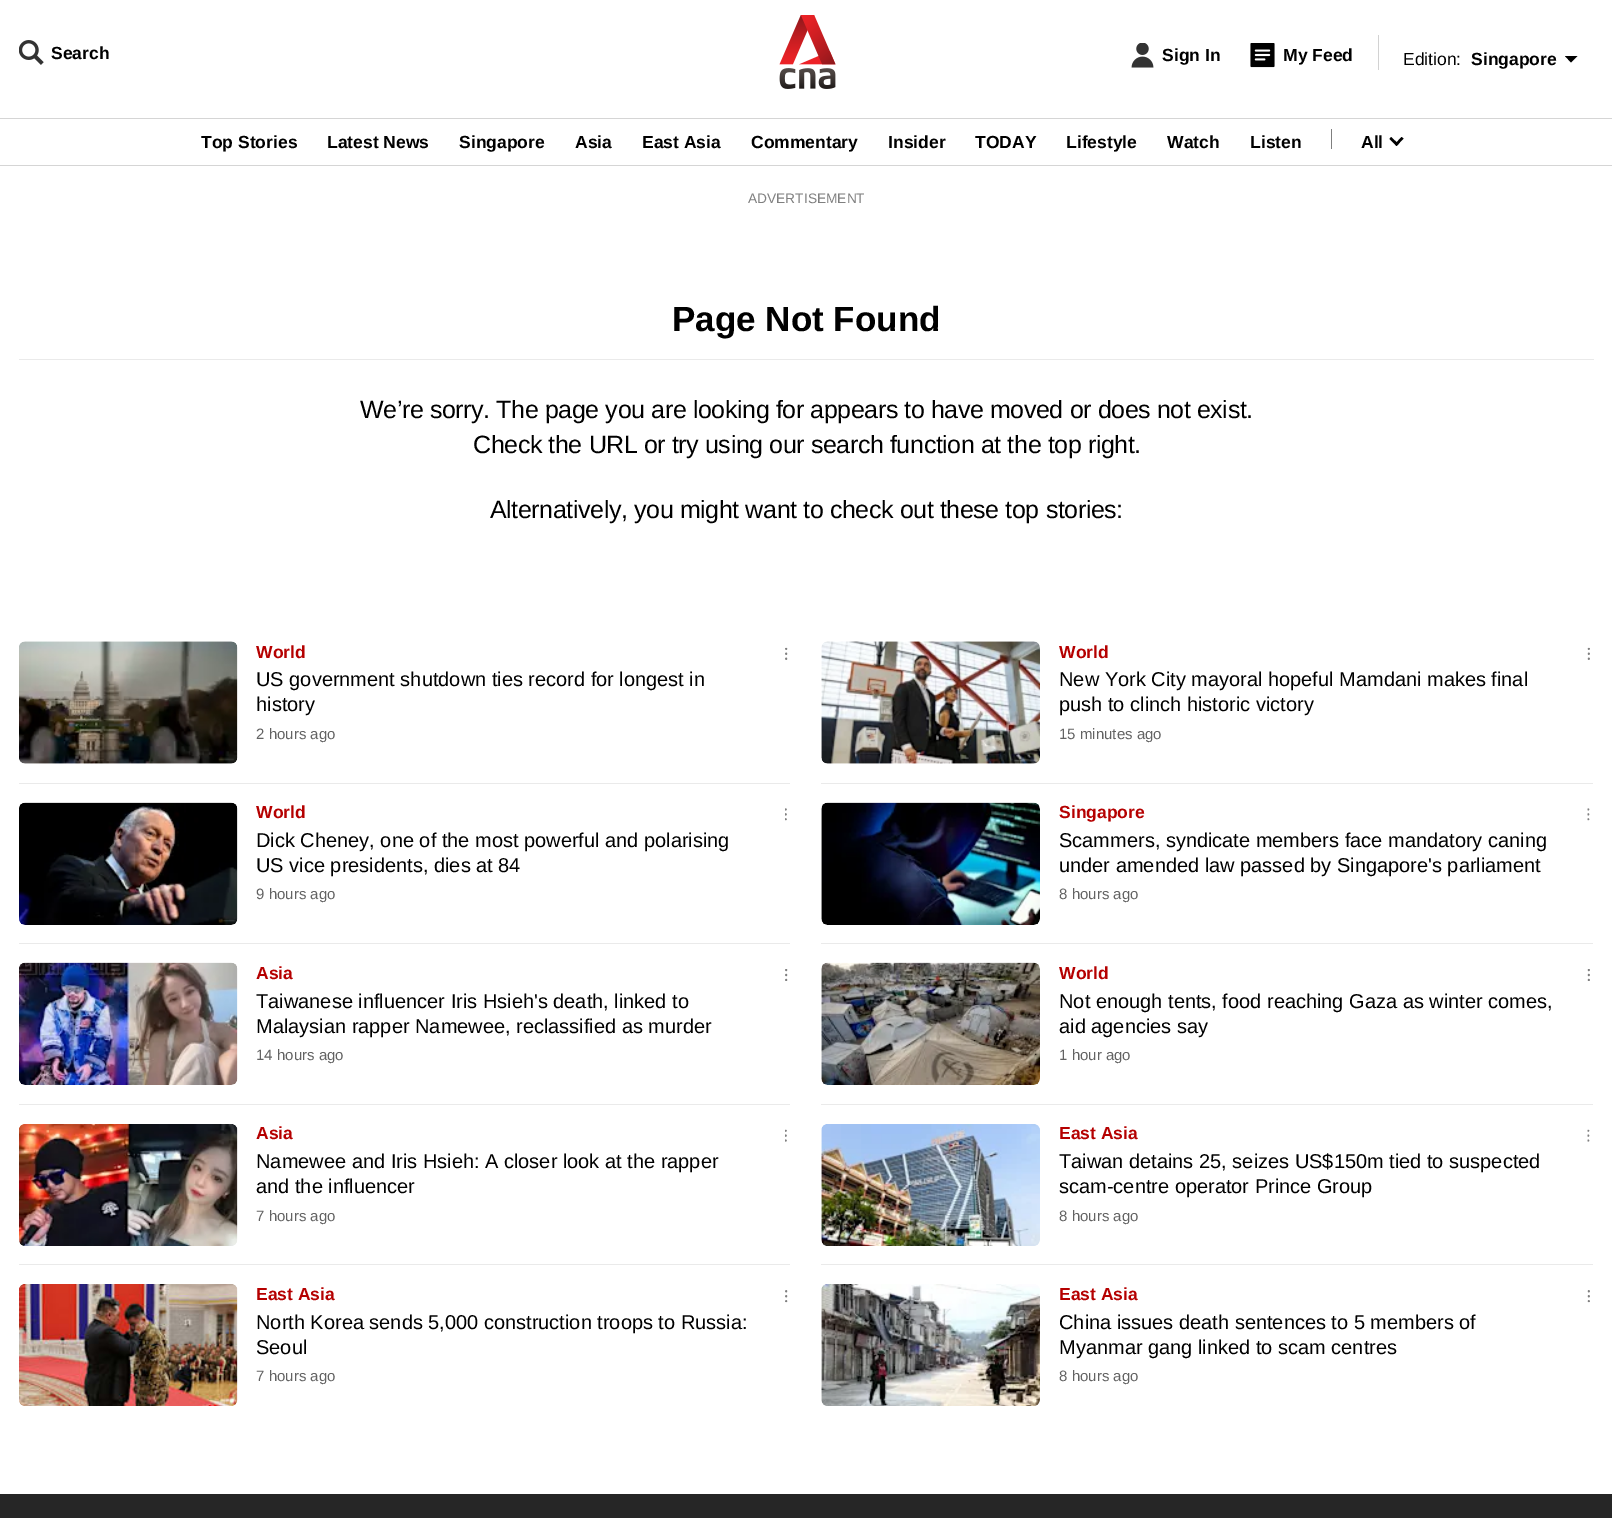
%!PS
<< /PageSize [1612 1518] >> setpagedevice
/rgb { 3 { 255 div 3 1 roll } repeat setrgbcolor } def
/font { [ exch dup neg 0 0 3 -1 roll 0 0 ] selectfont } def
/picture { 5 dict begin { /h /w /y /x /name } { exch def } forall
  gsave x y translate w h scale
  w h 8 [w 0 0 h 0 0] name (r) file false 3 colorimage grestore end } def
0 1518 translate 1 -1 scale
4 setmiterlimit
255 255 255 rgb
0 0 1612 1518 rectfill
(img/1.rgb) 19 40 25 25 picture
(img/2.rgb) 779 15 57 74 picture
(img/3.rgb) 1131 43 23 25 picture
(img/4.rgb) 1250 43 25 25 picture
210 210 210 rgb
1378 35 1 35 rectfill
0 0 0 rgb
1565 56 moveto 1577.5 56 lineto 1571 62.5 lineto closepath fill
[
  [0 118 1612 1 213 213 213]
  [0 165 1612 1 213 213 213]
  [1331 129 1 20 127 127 127]
] { aload pop rgb rectfill } forall
0 0 0 rgb
1396.5 146 moveto 1389.5 139 lineto 1391 137 lineto 1398.5 144 lineto closepath fill
1396.5 146 moveto 1395 144 lineto 1401.5 137 lineto 1403.5 138.5 lineto closepath fill
234 234 234 rgb
19 359 1575 1 rectfill
19 783 771 1 rectfill
(img/5.rgb) 19 641 219 123 picture
(img/6.rgb) 785 647 3 13 picture
821 783 772 1 rectfill
(img/7.rgb) 821 641 219 123 picture
(img/8.rgb) 1587 647 3 13 picture
19 943 771 1 rectfill
(img/9.rgb) 19 802 219 123 picture
(img/10.rgb) 785 808 2 13 picture
821 943 772 1 rectfill
(img/11.rgb) 821 802 219 123 picture
(img/12.rgb) 1587 808 3 13 picture
19 1104 771 1 rectfill
(img/13.rgb) 19 962 219 123 picture
(img/14.rgb) 785 969 3 12 picture
821 1104 772 1 rectfill
(img/15.rgb) 821 962 219 123 picture
(img/16.rgb) 1587 969 3 12 picture
19 1264 771 1 rectfill
(img/17.rgb) 19 1124 219 122 picture
(img/18.rgb) 785 1129 2 13 picture
821 1264 772 1 rectfill
(img/19.rgb) 821 1124 219 122 picture
(img/20.rgb) 1587 1129 3 13 picture
(img/21.rgb) 19 1284 219 122 picture
(img/22.rgb) 785 1290 3 13 picture
(img/23.rgb) 821 1284 219 122 picture
(img/24.rgb) 1587 1290 3 13 picture
38 38 38 rgb
0 1494 1612 24 rectfill
/LiberationSans-Bold 17.5 font
0 0 0 rgb
[
  [(Search) 51 59]
  [(Sign In) 1162 61]
  [(My Feed) 1283 61]
] { aload pop moveto show } forall
/LiberationSans-Regular 17.5 font
1403 65 moveto (Edition:) show
/LiberationSans-Bold 17.5 font
[
  [(Singapore) 1471 65]
  [(Top Stories) 201 148]
  [(Latest News) 327 148]
  [(Singapore) 459 148]
  [(Asia) 575 148]
  [(East Asia) 642 148]
  [(Commentary) 751 148]
  [(Insider) 888 148]
  [(TODAY) 975 148]
  [(Lifestyle) 1066 148]
  [(Watch) 1167 148]
  [(Listen) 1250 148]
  [(All) 1361 148]
] { aload pop moveto show } forall
/LiberationSans-Regular 13.75 font
127 127 127 rgb
748 203 moveto (ADVERTISEMENT) show
/LiberationSans-Bold 35 font
0 0 0 rgb
672 331 moveto (Page Not Found) show
/LiberationSans-Regular 25 font
360 418 moveto -0.4 0 (We’re sorry. The page you are looking for appears to have moved or does not exist.) ashow
473 453 moveto -0.4 0 (Check the URL or try using our search function at the top right.) ashow
490 518 moveto -0.4 0 (Alternatively, you might want to check out these top stories:) ashow
/LiberationSans-Bold 17.5 font
181 0 0 rgb
256 658 moveto (World) show
/LiberationSans-Regular 20 font
0 0 0 rgb
256 686 moveto (US government shutdown ties record for longest in) show
256 711 moveto (history) show
/LiberationSans-Regular 15 font
99 99 99 rgb
256 739 moveto (2 hours ago) show
/LiberationSans-Bold 17.5 font
181 0 0 rgb
1059 658 moveto (World) show
/LiberationSans-Regular 20 font
0 0 0 rgb
1059 686 moveto (New York City mayoral hopeful Mamdani makes final) show
1059 711 moveto (push to clinch historic victory) show
/LiberationSans-Regular 15 font
99 99 99 rgb
1059 739 moveto (15 minutes ago) show
/LiberationSans-Bold 17.5 font
181 0 0 rgb
256 818 moveto (World) show
/LiberationSans-Regular 20 font
0 0 0 rgb
256 847 moveto (Dick Cheney, one of the most powerful and polarising) show
256 872 moveto (US vice presidents, dies at 84) show
/LiberationSans-Regular 15 font
99 99 99 rgb
256 899 moveto (9 hours ago) show
/LiberationSans-Bold 17.5 font
181 0 0 rgb
1059 818 moveto (Singapore) show
/LiberationSans-Regular 20 font
0 0 0 rgb
1059 847 moveto (Scammers, syndicate members face mandatory caning) show
1059 872 moveto (under amended law passed by Singapore's parliament) show
/LiberationSans-Regular 15 font
99 99 99 rgb
1059 899 moveto (8 hours ago) show
/LiberationSans-Bold 17.5 font
181 0 0 rgb
256 979 moveto (Asia) show
/LiberationSans-Regular 20 font
0 0 0 rgb
256 1008 moveto (Taiwanese influencer Iris Hsieh's death, linked to) show
256 1033 moveto (Malaysian rapper Namewee, reclassified as murder) show
/LiberationSans-Regular 15 font
99 99 99 rgb
256 1060 moveto (14 hours ago) show
/LiberationSans-Bold 17.5 font
181 0 0 rgb
1059 979 moveto (World) show
/LiberationSans-Regular 20 font
0 0 0 rgb
1059 1008 moveto (Not enough tents, food reaching Gaza as winter comes,) show
1059 1033 moveto (aid agencies say) show
/LiberationSans-Regular 15 font
99 99 99 rgb
1059 1060 moveto (1 hour ago) show
/LiberationSans-Bold 17.5 font
181 0 0 rgb
256 1139 moveto (Asia) show
/LiberationSans-Regular 20 font
0 0 0 rgb
256 1168 moveto (Namewee and Iris Hsieh: A closer look at the rapper) show
256 1193 moveto (and the influencer) show
/LiberationSans-Regular 15 font
99 99 99 rgb
256 1221 moveto (7 hours ago) show
/LiberationSans-Bold 17.5 font
181 0 0 rgb
1059 1139 moveto (East Asia) show
/LiberationSans-Regular 20 font
0 0 0 rgb
1059 1168 moveto (Taiwan detains 25, seizes US$150m tied to suspected) show
1059 1193 moveto (scam-centre operator Prince Group) show
/LiberationSans-Regular 15 font
99 99 99 rgb
1059 1221 moveto (8 hours ago) show
/LiberationSans-Bold 17.5 font
181 0 0 rgb
256 1300 moveto (East Asia) show
/LiberationSans-Regular 20 font
0 0 0 rgb
256 1329 moveto (North Korea sends 5,000 construction troops to Russia:) show
256 1354 moveto (Seoul) show
/LiberationSans-Regular 15 font
99 99 99 rgb
256 1381 moveto (7 hours ago) show
/LiberationSans-Bold 17.5 font
181 0 0 rgb
1059 1300 moveto (East Asia) show
/LiberationSans-Regular 20 font
0 0 0 rgb
1059 1329 moveto (China issues death sentences to 5 members of) show
1059 1354 moveto (Myanmar gang linked to scam centres) show
/LiberationSans-Regular 15 font
99 99 99 rgb
1059 1381 moveto (8 hours ago) show
showpage
